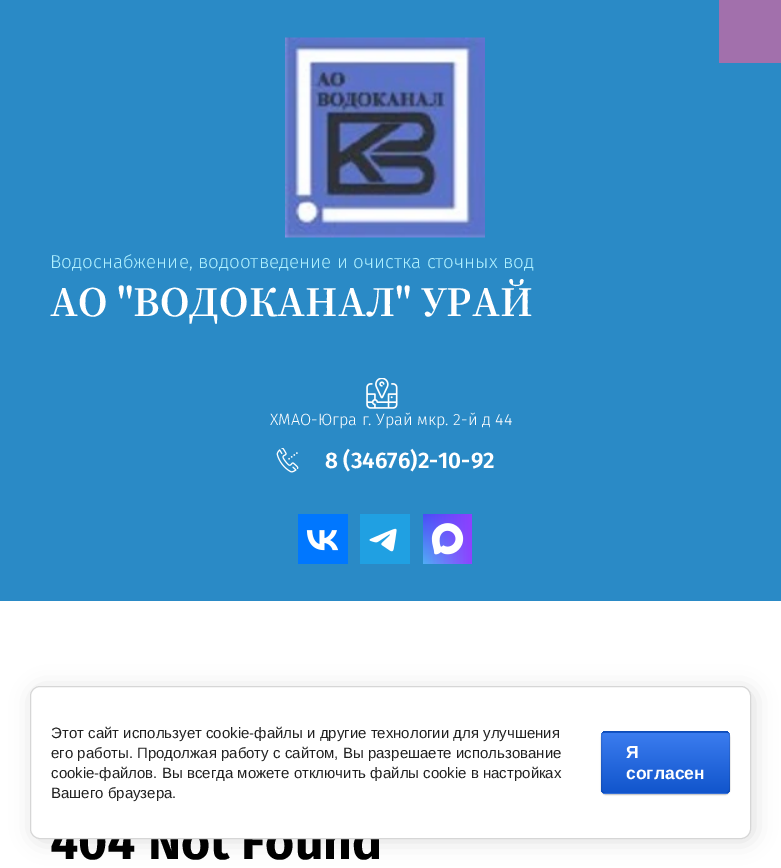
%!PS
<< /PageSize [781 868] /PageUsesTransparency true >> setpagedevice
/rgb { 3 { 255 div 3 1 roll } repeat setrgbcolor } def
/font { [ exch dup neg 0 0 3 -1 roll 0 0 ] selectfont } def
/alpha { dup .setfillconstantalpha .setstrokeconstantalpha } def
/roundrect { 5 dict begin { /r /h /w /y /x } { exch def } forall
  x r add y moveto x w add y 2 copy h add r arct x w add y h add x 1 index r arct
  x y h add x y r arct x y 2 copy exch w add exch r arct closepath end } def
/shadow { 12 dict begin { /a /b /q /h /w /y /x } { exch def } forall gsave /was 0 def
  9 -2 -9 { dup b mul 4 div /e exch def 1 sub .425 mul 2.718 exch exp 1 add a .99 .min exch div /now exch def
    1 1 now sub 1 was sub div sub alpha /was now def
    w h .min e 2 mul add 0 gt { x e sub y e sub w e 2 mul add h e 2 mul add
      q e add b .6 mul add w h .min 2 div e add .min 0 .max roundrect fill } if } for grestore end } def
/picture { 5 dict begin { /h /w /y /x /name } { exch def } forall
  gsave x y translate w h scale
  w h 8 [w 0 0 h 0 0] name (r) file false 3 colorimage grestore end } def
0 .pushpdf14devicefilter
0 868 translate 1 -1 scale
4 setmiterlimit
255 255 255 rgb
0 0 781 868 rectfill
42 138 198 rgb
0 0 781 601 rectfill
162 112 172 rgb
719 0 62 63 rectfill
(img/1.rgb) 285 37 200 201 picture
(img/2.rgb) 366 378 32 31 picture
(img/3.rgb) 276 448 23 25 picture
(img/4.rgb) 298 514 50 50 picture
(img/5.rgb) 360 514 50 50 picture
(img/6.rgb) 423 514 49 50 picture
0 0 0 rgb
33 689 721 152 10 11 0.14 shadow
/FiraSans-Light 18.75 font
175 240 255 rgb
50 268 moveto (Водоснабжение, водоотведение и очистка сточных вод) show
/NotoSerifSC-Bold 37.5 font
255 255 255 rgb
50 316 moveto (АО "ВОДОКАНАЛ" УРАЙ) show
/FiraSans-Light 16.25 font
270 425 moveto (ХМАО-Югра г. Урай мкр. 2-й д 44) show
/FiraSans-SemiBold 22.5 font
325 468 moveto (8 \(34676\)2-10-92) show
/FiraSans-Bold 50 font
0 0 0 rgb
50 859 moveto (404 Not Found) show
255 255 255 rgb
30.5 686.5 720 152 9.5 roundrect gsave fill grestore
214 214 214 rgb
stroke
/LiberationSans-Regular 15 font
33 33 33 rgb
[
  [(Этот сайт использует cookie-файлы и другие технологии для улучшения) 51 738]
  [(его работы. Продолжая работу с сайтом, Вы разрешаете использование) 51 758]
  [(cookie-файлов. Вы всегда можете отключить файлы cookie в настройках) 51 778]
  [(Вашего браузера.) 51 798]
] { aload pop moveto show } forall
0 0 0 rgb
601 733 129 62 5 0.5 0.2 shadow
gsave
601 731 129 63 5 roundrect clip newpath
gsave 601 731 moveto 730 731 lineto 730 733 lineto 601 733 lineto closepath clip newpath
<< /ShadingType 2 /ColorSpace /DeviceRGB /Coords [666 673 666 733] /Extend [true true] /Function << /FunctionType 2 /Domain [0 1] /C0 [0.231 0.486 0.937] /C1 [0.067 0.333 0.8] /N 1 >> >> shfill grestore
gsave 601 733 moveto 730 733 lineto 730 793 lineto 601 793 lineto closepath clip newpath
<< /ShadingType 2 /ColorSpace /DeviceRGB /Coords [666 733 666 793] /Extend [true true] /Function << /FunctionType 2 /Domain [0 1] /C0 [0.231 0.486 0.937] /C1 [0.067 0.333 0.8] /N 1 >> >> shfill grestore
gsave 601 793 moveto 730 793 lineto 730 794 lineto 601 794 lineto closepath clip newpath
<< /ShadingType 2 /ColorSpace /DeviceRGB /Coords [666 793 666 853] /Extend [true true] /Function << /FunctionType 2 /Domain [0 1] /C0 [0.231 0.486 0.937] /C1 [0.067 0.333 0.8] /N 1 >> >> shfill grestore
grestore
0.1 alpha
601.5 731.5 128 62 4.5 roundrect stroke
/LiberationSans-Bold 17.5 font
1 alpha
255 255 255 rgb
626 758 moveto (Я) show
626 779 moveto (согласен) show
.poppdf14devicefilter showpage
